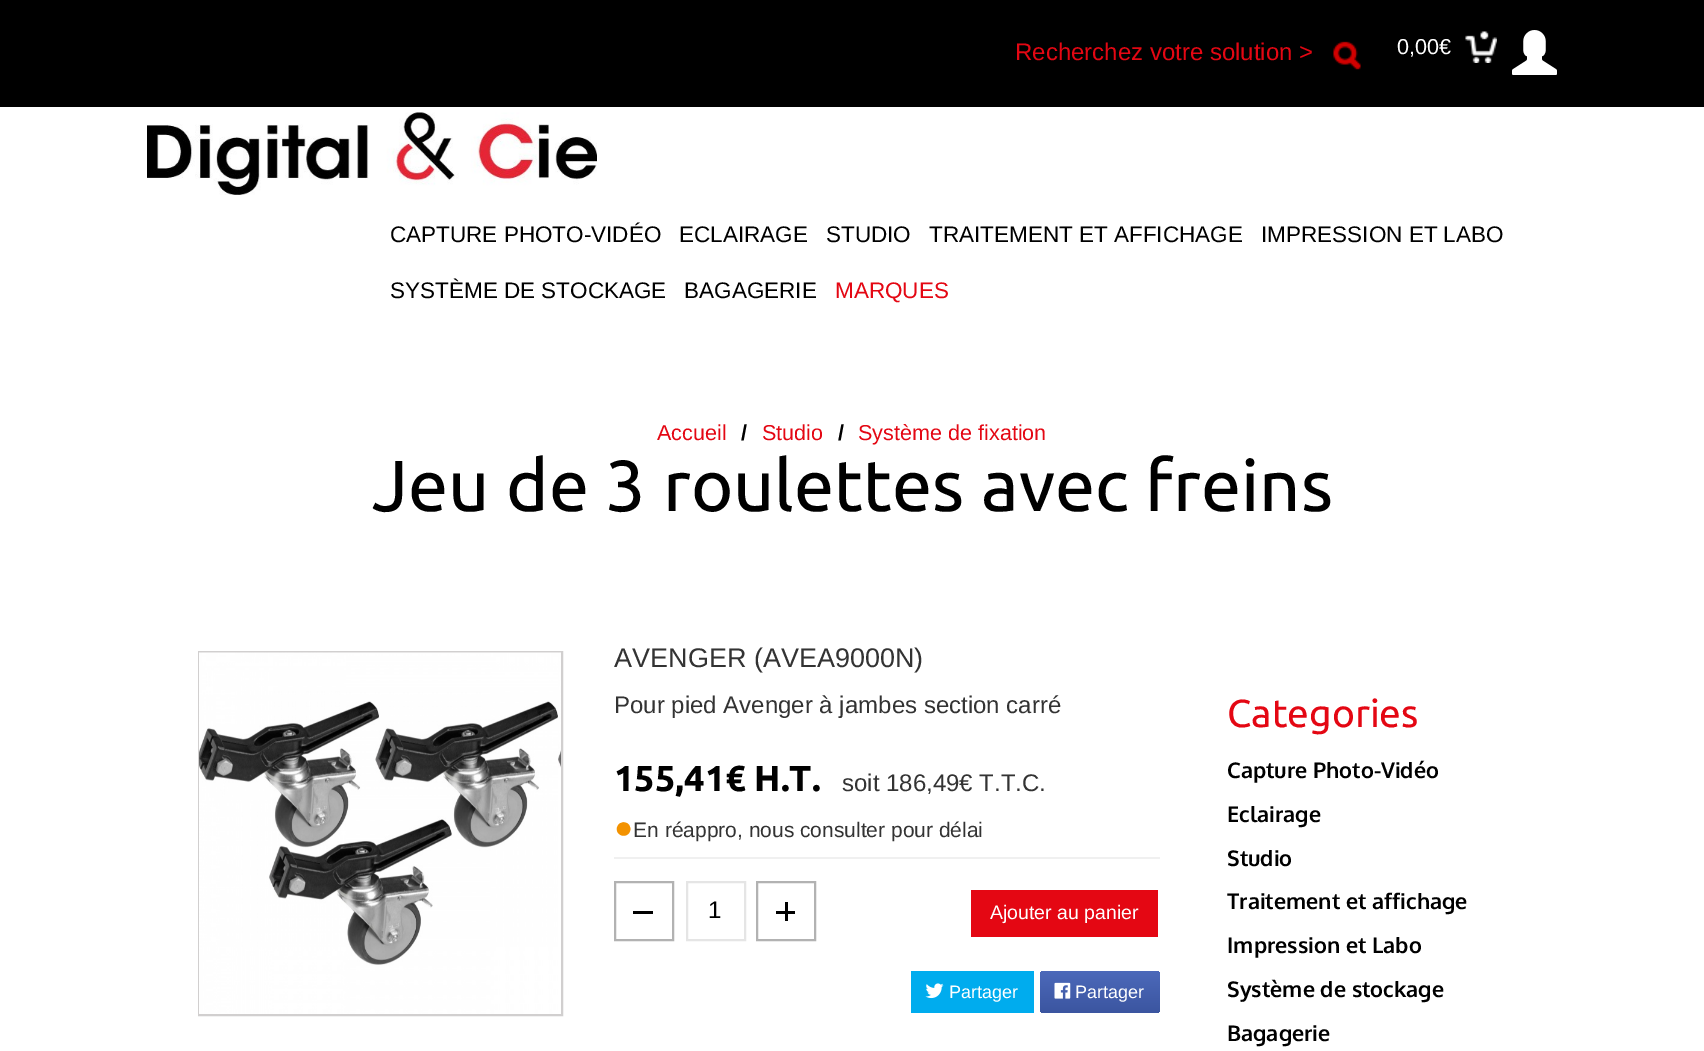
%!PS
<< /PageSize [1704 1051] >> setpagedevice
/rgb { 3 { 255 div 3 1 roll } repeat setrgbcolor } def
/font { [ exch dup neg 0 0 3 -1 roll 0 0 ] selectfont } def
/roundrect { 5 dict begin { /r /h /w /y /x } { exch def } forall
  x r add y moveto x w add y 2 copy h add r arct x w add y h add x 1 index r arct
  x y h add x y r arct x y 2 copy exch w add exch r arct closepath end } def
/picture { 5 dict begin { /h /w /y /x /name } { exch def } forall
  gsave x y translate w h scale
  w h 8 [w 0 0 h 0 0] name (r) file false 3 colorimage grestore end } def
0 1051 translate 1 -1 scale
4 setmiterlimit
255 255 255 rgb
0 0 1704 1051 rectfill
0 0 0 rgb
0 0 1704 107 rectfill
(img/1.rgb) 1333 41 28 29 picture
(img/2.rgb) 1465 31 32 32 picture
(img/3.rgb) 1512 30 45 45 picture
(img/4.rgb) 147 112 450 83 picture
209 207 207 rgb
2 setlinewidth
199 652 363 363 rectstroke
(img/5.rgb) 199 652 359 362 picture
(img/6.rgb) 558 652 3 116 picture
240 240 240 rgb
614 857 546 2 rectfill
178 178 178 rgb
615 882 58 58 rectstroke
0 0 0 rgb
633 911 20 3 rectfill
229 229 229 rgb
687 882 58 58 rectstroke
178 178 178 rgb
757 882 58 58 rectstroke
[
  [776 911 19 3 0 0 0]
  [785 902 3 19 0 0 0]
  [971 890 187 47 228 7 19]
  [911 971 123 42 0 172 238]
] { aload pop rgb rectfill } forall
(img/7.rgb) 925 983 19 16 picture
gsave 1040 971 120 42 4 roundrect clip newpath
<< /ShadingType 2 /ColorSpace /DeviceRGB /Coords [1100 971 1100 1013] /Extend [true true] /Function << /FunctionType 2 /Domain [0 1] /C0 [0.298 0.412 0.729] /C1 [0.231 0.333 0.627] /N 1 >> >> shfill grestore
(img/8.rgb) 1054 982 17 17 picture
/LiberationSans-Regular 24 font
228 7 19 rgb
1015 60 moveto (Recherchez votre solution >) show
/LiberationSans-Regular 21.6 font
255 255 255 rgb
1397 54 moveto (0,00€) show
/LiberationSans-Regular 22.5 font
0 0 0 rgb
[
  [(CAPTURE PHOTO-VIDÉO) 390 242]
  [(ECLAIRAGE) 679 242]
  [(STUDIO) 826 242]
  [(TRAITEMENT ET AFFICHAGE) 929 242]
  [(IMPRESSION ET LABO) 1261 242]
  [(SYSTÈME DE STOCKAGE) 390 298]
  [(BAGAGERIE) 684 298]
] { aload pop moveto show } forall
228 7 19 rgb
835 298 moveto (MARQUES) show
/LiberationSans-Regular 21.6 font
657 440 moveto (Accueil) show
/LiberationSans-Bold 21.6 font
0 0 0 rgb
741 440 moveto (/) show
/LiberationSans-Regular 21.6 font
228 7 19 rgb
762 440 moveto (Studio) show
/LiberationSans-Bold 21.6 font
0 0 0 rgb
838 440 moveto (/) show
/LiberationSans-Regular 21.6 font
228 7 19 rgb
858 440 moveto (Système de fixation) show
/Ubuntu-Regular 72 font
0 0 0 rgb
372 511 moveto (Jeu de 3 roulettes avec freins) show
/LiberationSans-Regular 27 font
51 51 51 rgb
614 667 moveto (AVENGER \(AVEA9000N\)) show
/LiberationSans-Regular 24 font
614 713 moveto (Pour pied Avenger à jambes section carré) show
/Ubuntu-Bold 36 font
0 0 0 rgb
614 791 moveto (155,41€ H.T.) show
/LiberationSans-Regular 24 font
51 51 51 rgb
842 791 moveto (soit 186,49€ T.T.C.) show
/LiberationSerif-Regular 32 font
243 146 0 rgb
614 838 moveto (●) show
/LiberationSans-Regular 21 font
51 51 51 rgb
633 837 moveto (En réappro, nous consulter pour délai) show
/LiberationSans-Regular 24 font
0 0 0 rgb
708 918 moveto (1) show
/LiberationSans-Regular 19.5 font
255 255 255 rgb
990 919 moveto (Ajouter au panier) show
/LiberationSans-Regular 18 font
949 998 moveto (Partager) show
1075 998 moveto (Partager) show
/Ubuntu-Regular 39 font
228 7 19 rgb
1227 727 moveto (Categories) show
/Oxygen-Bold 21.6 font
0 0 0 rgb
[
  [(Capture Photo-Vidéo) 1227 778]
  [(Eclairage) 1227 822]
  [(Studio) 1227 866]
  [(Traitement et affichage) 1227 909]
  [(Impression et Labo) 1227 953]
  [(Système de stockage) 1227 997]
  [(Bagagerie) 1227 1041]
] { aload pop moveto show } forall
showpage
